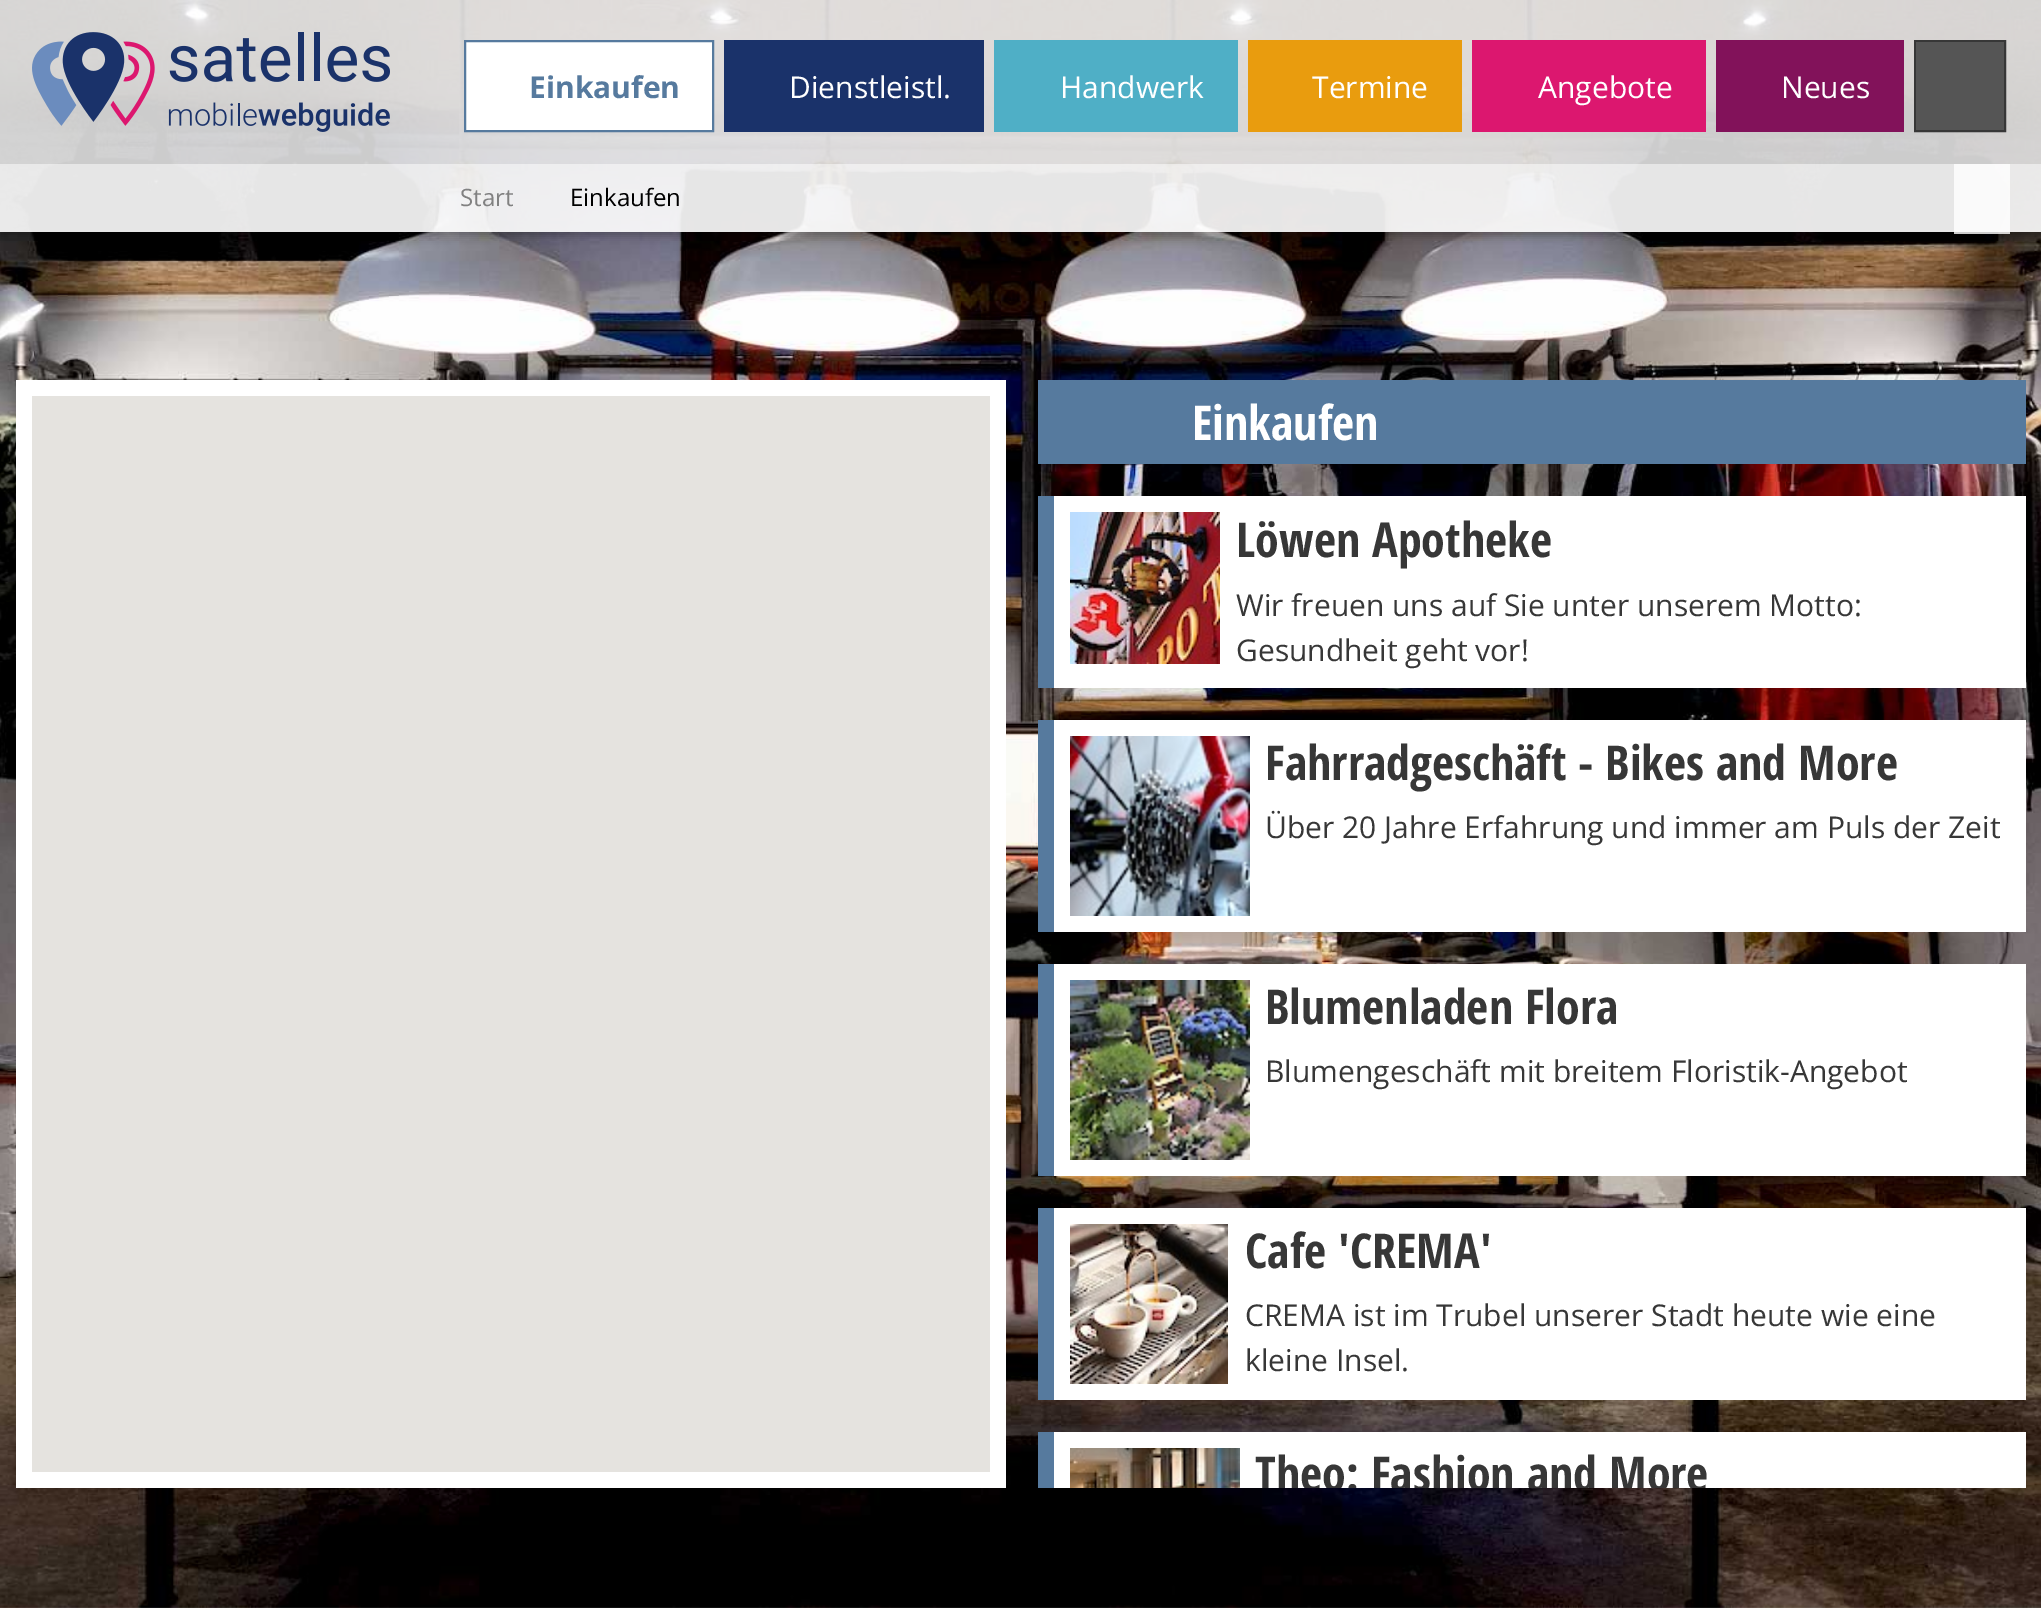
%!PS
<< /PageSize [2041 1608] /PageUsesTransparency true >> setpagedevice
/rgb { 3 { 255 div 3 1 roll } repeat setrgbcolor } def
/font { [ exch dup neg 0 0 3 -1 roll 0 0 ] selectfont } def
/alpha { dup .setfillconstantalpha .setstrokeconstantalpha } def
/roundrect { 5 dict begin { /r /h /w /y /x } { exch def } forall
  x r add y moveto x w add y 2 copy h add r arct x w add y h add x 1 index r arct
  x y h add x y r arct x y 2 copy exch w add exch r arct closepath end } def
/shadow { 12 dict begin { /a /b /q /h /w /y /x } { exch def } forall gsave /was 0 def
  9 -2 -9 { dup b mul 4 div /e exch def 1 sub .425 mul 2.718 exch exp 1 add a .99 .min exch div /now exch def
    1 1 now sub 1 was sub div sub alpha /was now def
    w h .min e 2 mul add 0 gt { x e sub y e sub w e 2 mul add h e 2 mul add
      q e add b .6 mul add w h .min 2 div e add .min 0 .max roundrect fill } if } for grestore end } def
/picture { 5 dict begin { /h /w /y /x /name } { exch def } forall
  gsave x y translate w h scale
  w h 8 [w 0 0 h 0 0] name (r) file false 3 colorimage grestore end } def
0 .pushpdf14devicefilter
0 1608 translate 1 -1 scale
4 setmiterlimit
255 255 255 rgb
0 0 2041 1608 rectfill
(img/1.rgb) 0 0 2041 1608 picture
gsave
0 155 moveto 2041 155 lineto 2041 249 lineto 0 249 lineto closepath 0 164 moveto 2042 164 lineto 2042 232 lineto 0 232 lineto closepath eoclip newpath
0 0 0 rgb
0 168 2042 68 0 4 0.25 shadow
grestore
0.8 alpha
0 0 2041 164 rectfill
1 alpha
(img/2.rgb) 32 32 358 100 picture
465 41 moveto 713 41 lineto 713 131 lineto 465 131 lineto closepath gsave fill grestore
86 122 158 rgb
2 setlinewidth
stroke
[
  [724 40 260 92 26 50 106]
  [994 40 244 92 79 175 198]
  [1248 40 214 92 233 156 14]
  [1472 40 234 92 220 23 111]
  [1716 40 188 92 130 18 90]
] { aload pop rgb rectfill } forall
55 55 55 rgb
1915 41 90 90 rectstroke
[
  [1916 42 88 88 85 85 85]
] { aload pop rgb rectfill } forall
0.9 alpha
[
  [0 164 2041 68 255 255 255]
] { aload pop rgb rectfill } forall
0.8 alpha
[
  [1954 164 56 70 255 255 255]
] { aload pop rgb rectfill } forall
1 alpha
[
  [16 380 990 1108 255 255 255]
  [32 396 958 1076 229 227 223]
  [1038 380 988 84 86 122 158]
  [1054 496 972 192 255 255 255]
  [1038 496 16 192 86 122 158]
] { aload pop rgb rectfill } forall
(img/3.rgb) 1070 512 150 152 picture
255 255 255 rgb
1054 720 972 212 rectfill
86 122 158 rgb
1038 720 16 212 rectfill
(img/4.rgb) 1070 736 180 180 picture
255 255 255 rgb
1054 964 972 212 rectfill
86 122 158 rgb
1038 964 16 212 rectfill
(img/5.rgb) 1070 980 180 180 picture
255 255 255 rgb
1054 1208 972 192 rectfill
86 122 158 rgb
1038 1208 16 192 rectfill
(img/6.rgb) 1070 1224 158 160 picture
255 255 255 rgb
1054 1432 972 56 rectfill
86 122 158 rgb
1038 1432 16 56 rectfill
(img/7.rgb) 1070 1448 170 40 picture
/OpenSans-Bold 30 font
529 98 moveto (Einkaufen) show
/OpenSans-Regular 30 font
255 255 255 rgb
[
  [(Dienstleistl.) 789 98]
  [(Handwerk) 1060 98]
  [(Termine) 1312 98]
  [(Angebote) 1538 98]
  [(Neues) 1781 98]
] { aload pop moveto show } forall
/OpenSans-Regular 24 font
129 129 129 rgb
460 206 moveto (Start) show
0 0 0 rgb
570 206 moveto (Einkaufen) show
/OpenSansCondensed-Bold 48 font
255 255 255 rgb
1192 440 moveto (Einkaufen) show
55 55 55 rgb
1236 557 moveto (Löwen Apotheke) show
/OpenSans-Regular 30 font
1236 616 moveto (Wir freuen uns auf Sie unter unserem Motto:) show
1236 661 moveto (Gesundheit geht vor!) show
/OpenSansCondensed-Bold 48 font
1265 780 moveto (Fahrradgeschäft - Bikes and More) show
/OpenSans-Regular 30 font
1265 838 moveto (Über 20 Jahre Erfahrung und immer am Puls der Zeit) show
/OpenSansCondensed-Bold 48 font
1265 1024 moveto (Blumenladen Flora) show
/OpenSans-Regular 30 font
1265 1082 moveto (Blumengeschäft mit breitem Floristik-Angebot) show
/OpenSansCondensed-Bold 48 font
1245 1268 moveto (Cafe 'CREMA') show
/OpenSans-Regular 30 font
1245 1326 moveto (CREMA ist im Trubel unserer Stadt heute wie eine) show
1245 1371 moveto (kleine Insel.) show
gsave
1022 380 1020 1108 rectclip
/OpenSansCondensed-Bold 48 font
1255 1491 moveto (Theo: Fashion and More) show
grestore
.poppdf14devicefilter showpage
